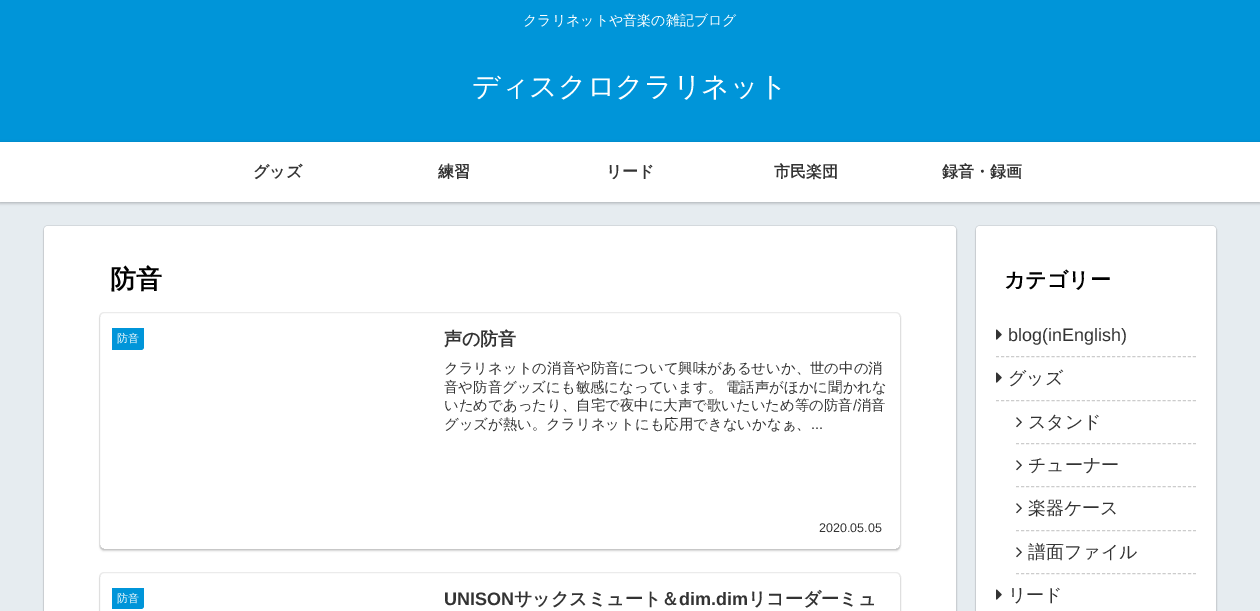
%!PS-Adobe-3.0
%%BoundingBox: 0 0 1260 611
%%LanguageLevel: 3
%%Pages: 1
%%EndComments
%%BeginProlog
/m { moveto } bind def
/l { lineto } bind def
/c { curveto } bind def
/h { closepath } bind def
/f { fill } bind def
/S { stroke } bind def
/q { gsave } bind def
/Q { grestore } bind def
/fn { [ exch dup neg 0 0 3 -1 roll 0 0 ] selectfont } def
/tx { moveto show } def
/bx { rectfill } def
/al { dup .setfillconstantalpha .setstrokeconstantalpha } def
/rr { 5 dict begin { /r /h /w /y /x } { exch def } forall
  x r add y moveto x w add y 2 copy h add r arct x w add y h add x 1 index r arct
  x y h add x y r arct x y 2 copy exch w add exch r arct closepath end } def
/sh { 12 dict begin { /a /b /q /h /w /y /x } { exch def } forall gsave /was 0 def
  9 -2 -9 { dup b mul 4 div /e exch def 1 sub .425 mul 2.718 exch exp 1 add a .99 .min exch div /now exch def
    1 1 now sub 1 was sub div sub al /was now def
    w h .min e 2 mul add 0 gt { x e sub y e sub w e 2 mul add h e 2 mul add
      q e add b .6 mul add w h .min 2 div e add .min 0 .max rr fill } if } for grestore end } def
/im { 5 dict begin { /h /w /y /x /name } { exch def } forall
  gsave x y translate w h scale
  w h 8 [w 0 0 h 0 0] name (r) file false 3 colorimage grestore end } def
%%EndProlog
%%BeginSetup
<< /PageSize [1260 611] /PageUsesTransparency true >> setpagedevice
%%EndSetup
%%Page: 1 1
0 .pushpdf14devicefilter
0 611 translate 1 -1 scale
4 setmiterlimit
0.902 0.925 0.941 setrgbcolor
0 0 1260 611 bx
1 setgray
0 142 1260 60 bx
0 0.584 0.851 setrgbcolor
0 0 1260 142 bx
/WenQuanYiZenHei-Medium 14 fn
1 setgray
(クラリネットや音楽の雑記ブログ) 523 25 tx
/WenQuanYiZenHei-Medium 28 fn
(ディスクロクラリネット) 472 96 tx
q
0 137 m 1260 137 l 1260 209 l 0 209 l h 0 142 m 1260 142 l 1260 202 l 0 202 l h eoclip newpath
0 setgray
0 143 1260 60 0 1.5 0.25 sh
Q
/WenQuanYiZenHei-Bold 16 fn
0.2 setgray
(グッズ) 253 177 tx
(練習) 438 177 tx
(リード) 606 177 tx
(市民楽団) 774 177 tx
(録音・録画) 942 177 tx
0.831 0.851 0.867 setrgbcolor
43.5 225.5 913 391 4.5 rr S
0 setgray
44 228 912 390 4 1 0.16 sh
1 setgray
44 226 912 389 4 rr f
/WenQuanYiZenHei-Bold 26 fn
0 setgray
(防音) 110 288 tx
0.922 setgray
99.5 312.5 801 237 4.5 rr S
q
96 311 m 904 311 l 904 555 l 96 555 l h 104 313 m 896 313 l 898 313 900 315 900 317 c 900 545 l 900 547 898 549 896 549 c 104 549 l 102 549 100 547 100 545 c 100 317 l 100 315 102 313 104 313 c h eoclip newpath
0 setgray
100 315 800 236 4 1 0.16 sh
Q
0 0.584 0.851 setrgbcolor
112 328 m 144 328 l 144 347 l 144 348.5 142.5 350 141 350 c 112 350 l h f
/WenQuanYiZenHei-Medium 11 fn
1 setgray
(防音) 117 342 tx
/WenQuanYiZenHei-Bold 18 fn
0.2 setgray
(声の防音) 444 345 tx
/WenQuanYiZenHei-Medium 14.4 fn
(クラリネットの消音や防音について興味があるせいか、世の中の消) 444 373 tx
(音や防音グッズにも敏感になっています。) 444 392 tx
(電話声がほかに聞かれな) 726 392 tx
(いためであったり、自宅で夜中に大声で歌いたいため等の防音) 444 410 tx
/LiberationSans-Regular 14.4 fn
(/) 853 410 tx
/WenQuanYiZenHei-Medium 14.4 fn
(消音) 857 410 tx
(グッズが熱い。クラリネットにも応用できないかなぁ、) 444 429 tx
/LiberationSans-Regular 14.4 fn
(...) 811 429 tx
/LiberationSans-Regular 12.5 fn
(2020.05.05) 819 532 tx
0.922 setgray
99.5 572.5 801 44 4.5 rr S
q
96 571 m 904 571 l 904 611 l 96 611 l h 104 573 m 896 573 l 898 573 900 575 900 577 c 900 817 l 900 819 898 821 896 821 c 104 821 l 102 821 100 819 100 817 c 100 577 l 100 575 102 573 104 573 c h eoclip newpath
0 setgray
100 575 800 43 4 1 0.16 sh
Q
0 0.584 0.851 setrgbcolor
112 588 m 144 588 l 144 606 l 144 607.5 142.5 609 141 609 c 112 609 l h f
/WenQuanYiZenHei-Medium 11 fn
1 setgray
(防音) 117 602 tx
/LiberationSans-Bold 18 fn
0.2 setgray
(UNISON) 444 605 tx
/WenQuanYiZenHei-Bold 18 fn
(サックスミュート＆) 514 605 tx
/LiberationSans-Bold 18 fn
(dim.dim) 679 605 tx
/WenQuanYiZenHei-Bold 18 fn
(リコーダーミュ) 748 605 tx
0.831 0.851 0.867 setrgbcolor
975.5 225.5 241 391 4.5 rr S
0 setgray
976 228 240 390 4 1 0.16 sh
1 setgray
976 226 240 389 4 rr f
/WenQuanYiZenHei-Bold 21 fn
0 setgray
(カテゴリー) 1004 287 tx
0.8 setgray
[3 2.05] 0 setdash
996 356.5 m 1196 356.5 l S
(image0.raw) 996 329 6 11 im
/LiberationSans-Regular 18 fn
0.2 setgray
(blog\(inEnglish\)) 1008 341 tx
0.8 setgray
996 400.5 m 1196 400.5 l S
(image0.raw) 996 372 6 11 im
/WenQuanYiZenHei-Medium 18 fn
0.2 setgray
(グッズ) 1008 384 tx
0.8 setgray
[3 2.06] 0 setdash
1016 443.5 m 1196 443.5 l S
(image1.raw) 1016 417 6 11 im
0.2 setgray
(スタンド) 1028 428 tx
0.8 setgray
1016 486.5 m 1196 486.5 l S
(image1.raw) 1016 460 6 11 im
0.2 setgray
(チューナー) 1028 471 tx
0.8 setgray
1016 530.5 m 1196 530.5 l S
(image1.raw) 1016 503 6 11 im
0.2 setgray
(楽器ケース) 1028 514 tx
0.8 setgray
1016 573.5 m 1196 573.5 l S
(image1.raw) 1016 547 6 11 im
0.2 setgray
(譜面ファイル) 1028 558 tx
(image0.raw) 996 589 6 11 im
(リード) 1008 601 tx
.poppdf14devicefilter showpage
%%EOF
